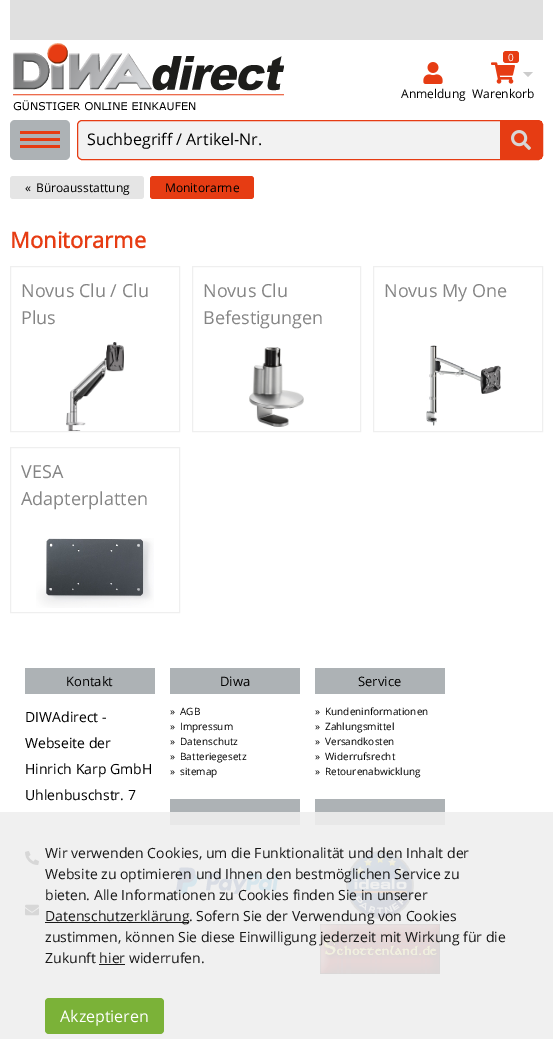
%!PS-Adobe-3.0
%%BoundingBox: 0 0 553 1039
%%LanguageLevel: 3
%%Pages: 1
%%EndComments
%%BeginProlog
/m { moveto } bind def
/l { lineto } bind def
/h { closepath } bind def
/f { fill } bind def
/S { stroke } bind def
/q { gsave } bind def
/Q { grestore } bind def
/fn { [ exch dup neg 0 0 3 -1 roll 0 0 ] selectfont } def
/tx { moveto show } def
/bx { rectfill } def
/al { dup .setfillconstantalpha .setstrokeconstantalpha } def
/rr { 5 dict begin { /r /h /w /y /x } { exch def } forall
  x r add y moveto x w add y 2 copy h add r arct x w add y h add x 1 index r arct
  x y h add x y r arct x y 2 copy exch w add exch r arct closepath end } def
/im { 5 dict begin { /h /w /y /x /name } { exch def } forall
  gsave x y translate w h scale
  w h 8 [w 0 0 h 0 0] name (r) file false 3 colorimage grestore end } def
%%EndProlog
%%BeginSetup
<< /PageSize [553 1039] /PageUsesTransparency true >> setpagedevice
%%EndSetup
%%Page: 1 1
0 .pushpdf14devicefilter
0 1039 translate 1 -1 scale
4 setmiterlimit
1 setgray
0 0 553 1039 bx
0.878 setgray
10 0 533 40 bx
(image0.raw) 13 43 271 68 im
(image1.raw) 423 62 20 22 im
/OpenSans-Regular 12 fn
0 setgray
(Anmeldung) 401 98 tx
(image2.raw) 491 62 24 22 im
0.902 0.235 0.075 setrgbcolor
503 51 16 12 3 rr f
/OpenSans-Regular 10 fn
1 setgray
(0) 508 61 tx
0.8 setgray
523 72 m 533 72 l 528 77 l h f
/OpenSans-Regular 12 fn
0 setgray
(Warenkorb) 472 98 tx
0.678 0.698 0.71 setrgbcolor
10 120 60 40 5 rr f
0.902 0.235 0.075 setrgbcolor
20 131 40 3 bx
20 138 40 3 bx
20 145 40 3 bx
0.949 setgray
77.5 120.5 465 39 4.5 rr q f Q
0.902 0.235 0.075 setrgbcolor
S
/OpenSans-Regular 16 fn
0 setgray
(Suchbegriff / Artikel-Nr.) 87 145 tx
0.902 0.235 0.075 setrgbcolor
500 121 42 38 bx
(image3.raw) 511 130 20 20 im
0.898 setgray
10 176 134 23 3 rr f
/OpenSans-Regular 12 fn
0 setgray
(«) 25 192 tx
(Büroausstattung) 36 192 tx
0.902 0.235 0.075 setrgbcolor
150 176 104 23 3 rr f
0 setgray
(Monitorarme) 165 192 tx
/OpenSans-Bold 22 fn
0.902 0.235 0.075 setrgbcolor
(Monitorarme) 10 248 tx
0.937 setgray
10.5 266.5 169 165 rectstroke
/OpenSans-Regular 18 fn
0.522 setgray
(Novus Clu / Clu) 21 297 tx
(Plus) 21 324 tx
(image4.raw) 66 342 58 89 im
0.937 setgray
192.5 266.5 168 165 rectstroke
0.522 setgray
(Novus Clu) 203 297 tx
(Befestigungen) 203 324 tx
(image5.raw) 249 347 55 80 im
0.937 setgray
373.5 266.5 169 165 rectstroke
0.522 setgray
(Novus My One) 384 297 tx
(image6.raw) 426 345 75 81 im
0.937 setgray
10.5 447.5 169 165 rectstroke
0.522 setgray
(VESA) 21 478 tx
(Adapterplatten) 21 505 tx
(image7.raw) 36 538 118 70 im
0.678 0.698 0.71 setrgbcolor
25 668 130 26 bx
/OpenSans-Regular 13 fn
0 setgray
(Kontakt) 66 686 tx
/OpenSans-Regular 14 fn
(DIWAdirect -) 25 722 tx
(Webseite der) 25 748 tx
(Hinrich Karp GmbH) 25 774 tx
(Uhlenbuschstr. 7) 25 800 tx
(image8.raw) 25 851 14 14 im
(image9.raw) 25 904 14 12 im
0.678 0.698 0.71 setrgbcolor
170 668 130 26 bx
/OpenSans-Regular 13 fn
0 setgray
(Diwa) 220 686 tx
/OpenSans-Regular 10 fn
(») 170 715 tx
(AGB) 180 715 tx
(») 170 730 tx
(Impressum) 180 730 tx
(») 170 745 tx
(Datenschutz) 180 745 tx
(») 170 760 tx
(Batteriegesetz) 180 760 tx
(») 170 775 tx
(sitemap) 180 775 tx
0.678 0.698 0.71 setrgbcolor
315 668 130 26 bx
/OpenSans-Regular 13 fn
0 setgray
(Service) 358 686 tx
/OpenSans-Regular 10 fn
(») 315 715 tx
(Kundeninformationen) 325 715 tx
(») 315 730 tx
(Zahlungsmittel) 325 730 tx
(») 315 745 tx
(Versandkosten) 325 745 tx
(») 315 760 tx
(Widerrufsrecht) 325 760 tx
(») 315 775 tx
(Retourenabwicklung) 325 775 tx
0.678 0.698 0.71 setrgbcolor
170 799 130 26 bx
(image10.raw) 176 867 102 27 im
315 799 130 26 bx
(image11.raw) 346 851 68 68 im
(image12.raw) 320 924 120 50 im
0.9 al
0.933 setgray
0 812 553 227 bx
/OpenSans-Regular 14 fn
1 al
0.094 setgray
(Wir verwenden Cookies, um die Funktionalität und den Inhalt der) 45 858 tx
(Website zu optimieren und Ihnen den bestmöglichen Service zu) 45 879 tx
(bieten. Alle Informationen zu Cookies finden Sie in unserer) 45 900 tx
0.102 setgray
45 922 144 1 bx
0.094 setgray
(Datenschutzerklärung) 45 921 tx
(. Sofern Sie der Verwendung von Cookies) 189 921 tx
(zustimmen, können Sie diese Einwilligung jederzeit mit Wirkung für die) 45 942 tx
(Zukunft hier widerrufen.) 45 963 tx
0.102 setgray
99 964 26 1 bx
0.9 al
0.431 0.671 0.141 setrgbcolor
45 998 119 36 4 rr f
/OpenSans-Regular 16 fn
1 al
1 setgray
(Akzeptieren) 60 1022 tx
.poppdf14devicefilter showpage
%%EOF
